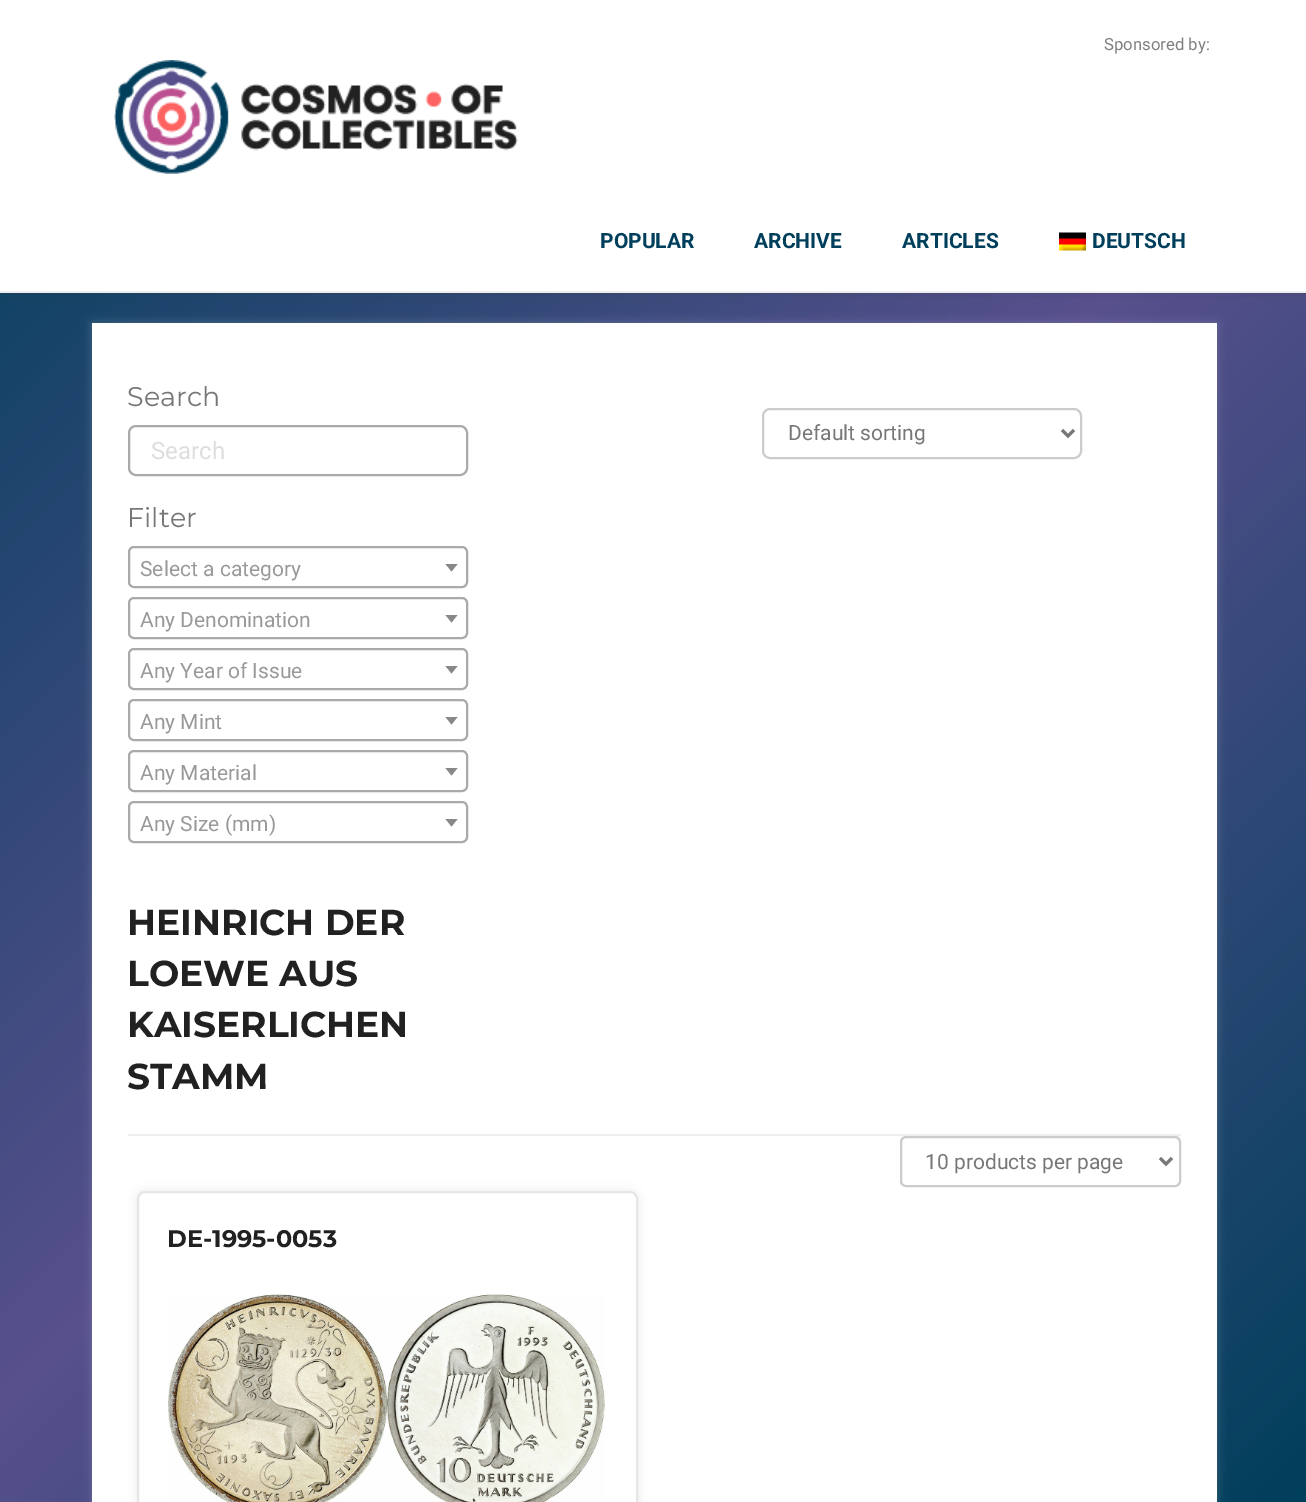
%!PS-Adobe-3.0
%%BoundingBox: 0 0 1306 1502
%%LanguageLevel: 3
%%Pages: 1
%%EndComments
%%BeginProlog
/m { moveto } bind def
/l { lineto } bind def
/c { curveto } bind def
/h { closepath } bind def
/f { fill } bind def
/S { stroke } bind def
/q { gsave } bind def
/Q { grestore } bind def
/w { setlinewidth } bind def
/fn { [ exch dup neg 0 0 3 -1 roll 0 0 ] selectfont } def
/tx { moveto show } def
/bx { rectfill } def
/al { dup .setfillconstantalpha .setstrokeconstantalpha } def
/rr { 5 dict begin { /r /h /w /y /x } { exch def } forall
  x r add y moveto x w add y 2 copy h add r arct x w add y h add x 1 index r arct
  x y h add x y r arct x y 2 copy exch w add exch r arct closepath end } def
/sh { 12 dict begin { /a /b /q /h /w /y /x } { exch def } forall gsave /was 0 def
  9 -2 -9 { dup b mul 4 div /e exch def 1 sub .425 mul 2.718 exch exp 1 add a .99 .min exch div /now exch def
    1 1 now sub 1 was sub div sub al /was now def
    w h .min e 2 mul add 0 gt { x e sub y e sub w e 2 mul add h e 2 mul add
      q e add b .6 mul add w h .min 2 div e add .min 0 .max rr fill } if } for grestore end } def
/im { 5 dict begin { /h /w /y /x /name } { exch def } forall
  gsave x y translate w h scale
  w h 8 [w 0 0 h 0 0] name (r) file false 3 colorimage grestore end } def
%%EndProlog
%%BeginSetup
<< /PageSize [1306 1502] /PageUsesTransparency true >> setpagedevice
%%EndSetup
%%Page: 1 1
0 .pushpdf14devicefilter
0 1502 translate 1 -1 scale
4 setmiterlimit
1 setgray
0 0 1306 1502 bx
q 0 293 m 1306 293 l 1306 1502 l 0 1502 l h clip newpath
<< /ShadingType 2 /ColorSpace /DeviceRGB /Coords [-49 49 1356 1454] /Extend [true true] /Function << /FunctionType 3 /Domain [0 1] /Functions [<< /FunctionType 2 /Domain [0 1] /C0 [0 0.247 0.361] /C1 [0.345 0.314 0.553] /N 1 >> << /FunctionType 2 /Domain [0 1] /C0 [0.345 0.314 0.553] /C1 [0 0.247 0.361] /N 1 >>] /Bounds [0.5] /Encode [0 1 0 1] >> >> shfill Q
0.2 setgray
0 0 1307 293 0 4.5 0.25 sh
1 setgray
0 0 1306 291 bx
0.933 setgray
0 291 1306 2 bx
/Roboto-Regular 16.75 fn
0.502 setgray
(Sponsored by:) 1104 50 tx
(image0.raw) 114 60 404 114 im
/Roboto-Bold 21 fn
0 0.247 0.361 setrgbcolor
(POPULAR) 600 248 tx
(ARCHIVE) 754 248 tx
(ARTICLES) 902 248 tx
(image1.raw) 1059 232 27 19 im
(DEUTSCH) 1092 248 tx
0.8 setgray
92 323 1125 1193 0 4.5 0.25 sh
1 setgray
92 323 1125 1179 bx
/Montserrat-Regular 27 fn
0.467 setgray
(Search) 127 406 tx
0.667 setgray
2 w
129 426 338 49 7 rr S
/Roboto-Regular 24 fn
0.867 setgray
(Search) 151 459 tx
/Montserrat-Regular 27 fn
0.467 setgray
(Filter) 127 527 tx
0.667 setgray
129 547 338 40 5 rr S
/Roboto-Regular 21 fn
0.6 setgray
(Select a category) 140 576 tx
0.533 setgray
445.5 564 m 457.5 564 l 451.5 571.5 l h f
0.667 setgray
129 598 338 40 5 rr S
0.6 setgray
(Any Denomination) 140 627 tx
0.533 setgray
445.5 615 m 457.5 615 l 451.5 622.5 l h f
0.667 setgray
129 649 338 40 5 rr S
0.6 setgray
(Any Year of Issue) 140 678 tx
0.533 setgray
445.5 666 m 457.5 666 l 451.5 673.5 l h f
0.667 setgray
129 700 338 40 5 rr S
0.6 setgray
(Any Mint) 140 729 tx
0.533 setgray
445.5 717 m 457.5 717 l 451.5 724.5 l h f
0.667 setgray
129 751 338 40 5 rr S
0.6 setgray
(Any Material) 140 780 tx
0.533 setgray
445.5 768 m 457.5 768 l 451.5 775.5 l h f
0.667 setgray
129 802 338 40 5 rr S
0.6 setgray
(Any Size \(mm\)) 140 831 tx
0.533 setgray
445.5 819 m 457.5 819 l 451.5 826.5 l h f
/Montserrat-Bold 36 fn
0.129 setgray
(HEINRICH DER) 127 935 tx
(LOEWE AUS) 127 986 tx
(KAISERLICHEN) 127 1037 tx
(STAMM) 127 1089 tx
0.8 setgray
763 409 318 49 7 rr S
0.467 setgray
3 w
1062 430 m 1068 436 l 1074 430 l S
/Roboto-Regular 21 fn
(Default sorting) 788 440 tx
0.933 setgray
128 1134 1053 2 bx
0.925 setgray
906 1138 m 1174 1138 l 1177 1138 1179 1141 1179 1143 c 1179 1142 l 1179 1139 1177 1137 1174 1137 c 907 1137 l 904 1137 902 1139 902 1142 c 902 1143 l 902 1141 904 1138 906 1138 c h f
0.8 setgray
2 w
901 1137 279 49 5 rr S
0.467 setgray
3 w
1160 1158 m 1166 1164 l 1172 1158 l S
(10 products per page) 925 1169 tx
0.667 setgray
137 1191 501 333 8 4.5 0.25 sh
1 setgray
138 1192 499 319 7 rr q f Q
0.902 setgray
2 w
S
/Montserrat-Bold 24 fn
0.129 setgray
(DE-1995-0053) 167 1247 tx
(image2.raw) 168 1294 219 208 im
(image3.raw) 387 1294 218 208 im
.poppdf14devicefilter showpage
%%EOF
